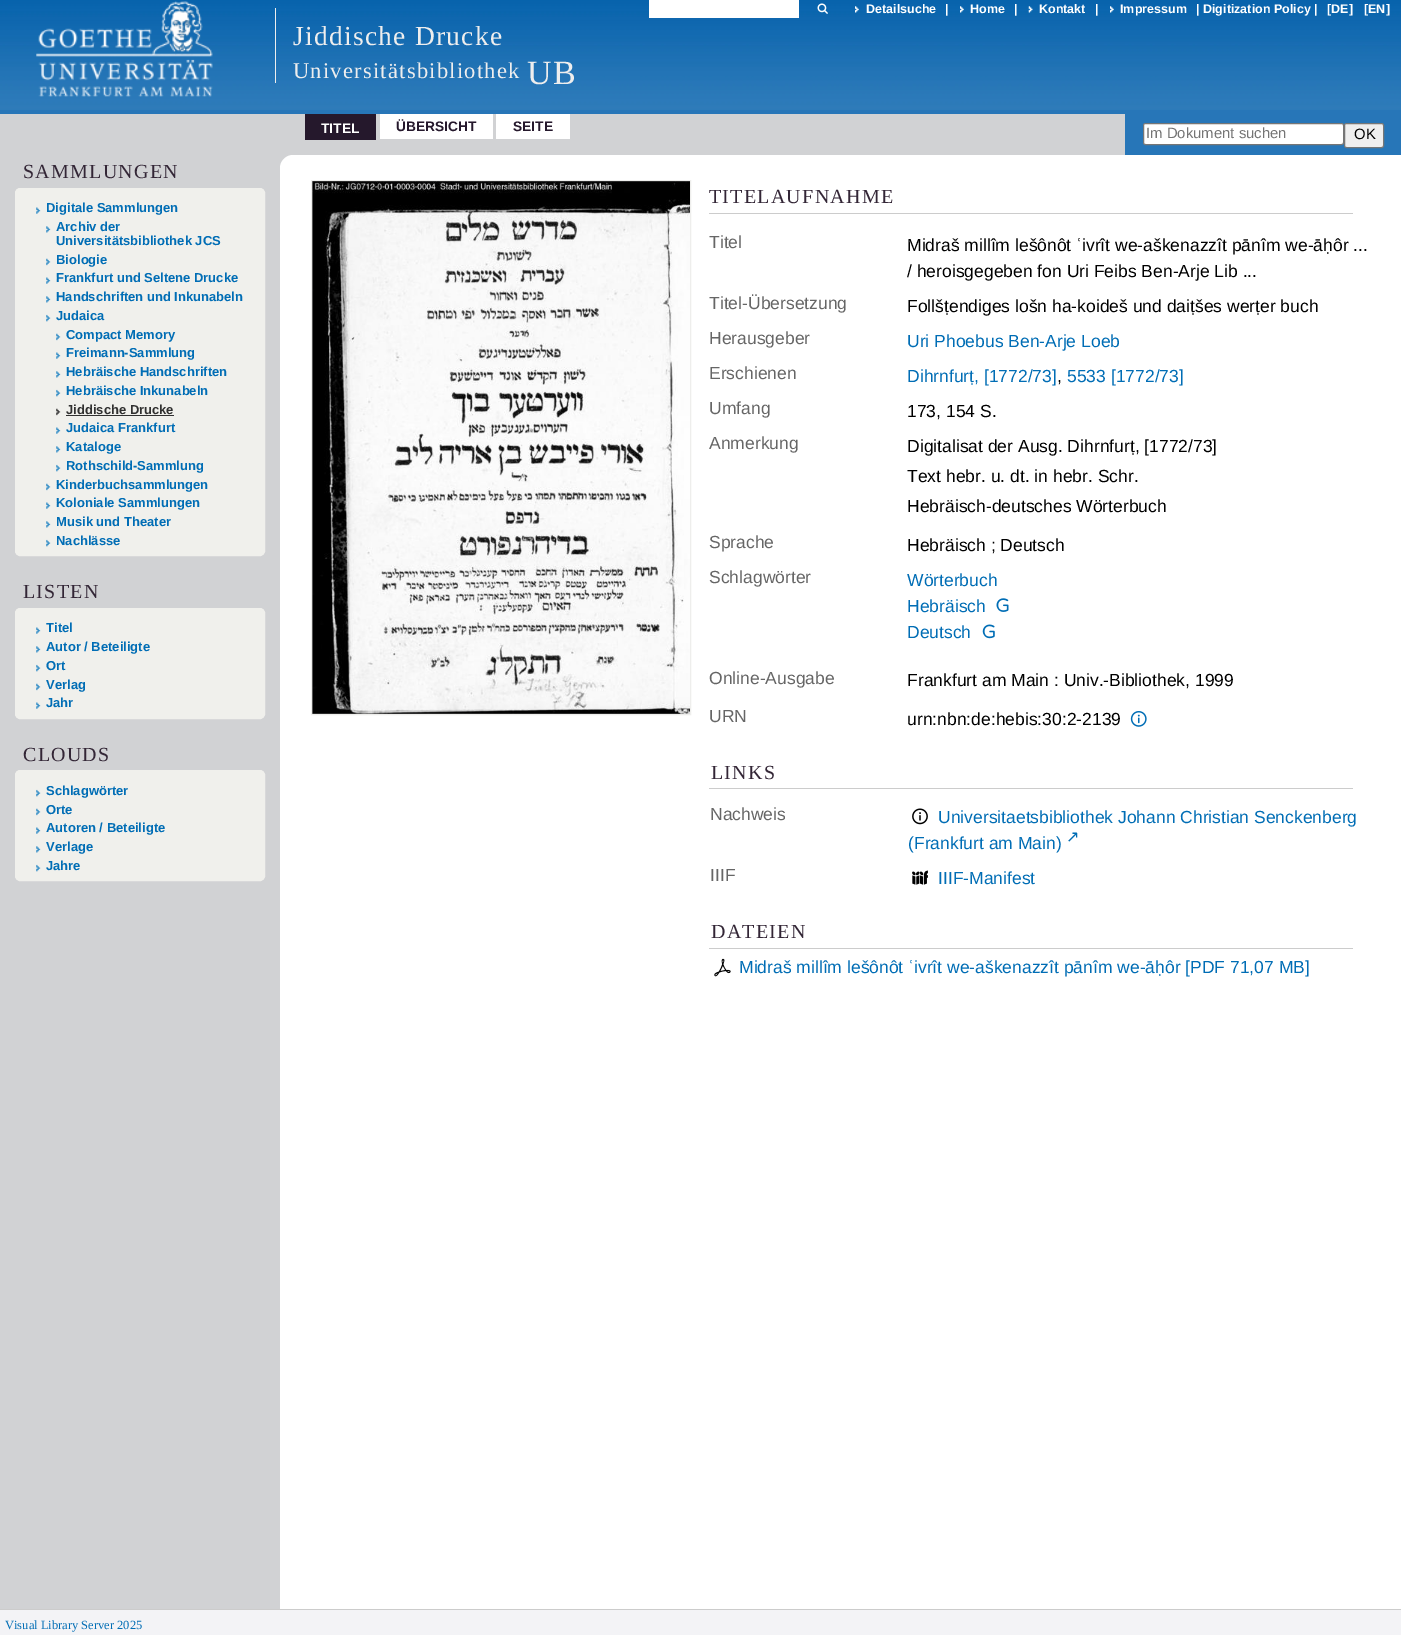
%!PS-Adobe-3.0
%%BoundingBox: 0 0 1401 1635
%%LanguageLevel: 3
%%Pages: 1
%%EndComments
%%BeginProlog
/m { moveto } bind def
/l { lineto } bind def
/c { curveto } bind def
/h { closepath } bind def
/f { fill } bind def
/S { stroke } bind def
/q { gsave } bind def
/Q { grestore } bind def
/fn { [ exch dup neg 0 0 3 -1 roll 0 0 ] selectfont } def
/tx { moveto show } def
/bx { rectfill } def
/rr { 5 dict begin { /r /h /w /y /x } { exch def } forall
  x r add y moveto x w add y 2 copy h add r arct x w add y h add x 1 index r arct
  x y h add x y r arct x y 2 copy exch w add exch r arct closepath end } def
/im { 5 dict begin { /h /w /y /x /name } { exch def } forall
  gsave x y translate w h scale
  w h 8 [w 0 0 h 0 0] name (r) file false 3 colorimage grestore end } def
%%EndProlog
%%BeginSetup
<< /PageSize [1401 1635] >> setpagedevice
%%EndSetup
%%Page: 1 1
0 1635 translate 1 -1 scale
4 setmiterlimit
0.153 0.463 0.722 setrgbcolor
0 0 1401 1635 bx
(image0.raw) 0 0 1401 110 im
(image1.raw) 36 1 177 96 im
1 setgray
649 0 150 18 bx
(image2.raw) 817 3 11 11 im
(image3.raw) 855 6 4 7 im
/LiberationSans-Bold 12.5 fn
(Detailsuche) 866 13 tx
(|) 945 13 tx
(image4.raw) 960 6 4 7 im
(Home) 970 13 tx
(|) 1014 13 tx
(image5.raw) 1028 6 5 7 im
(Kontakt) 1039 13 tx
(|) 1095 13 tx
(image6.raw) 1110 6 4 7 im
(Impressum) 1120 13 tx
(| Digitization Policy |) 1196 13 tx
([DE]) 1327 13 tx
([EN]) 1364 13 tx
0.933 setgray
275 8 1 75 bx
/LiberationSerif-Regular 27.5 fn
293 45 m 1.25 0 (Jiddische Drucke) ashow
/LiberationSerif-Regular 22.5 fn
293 78 m 1.25 0 (Universitätsbibliothek) ashow
/LiberationSerif-Regular 34 fn
527 84 m 1.25 0 (UB) ashow
0.82 0.824 0.831 setrgbcolor
0 114 1125 41 bx
0.145 0.094 0.173 setrgbcolor
305 114 71 26 bx
/LiberationSans-Bold 13.75 fn
1 setgray
(TITEL) 321 133 tx
380 114 113 25 bx
0.145 0.094 0.173 setrgbcolor
(ÜBERSICHT) 396 131 tx
1 setgray
496 114 74 25 bx
0.145 0.094 0.173 setrgbcolor
(SEITE) 513 131 tx
1 setgray
1143.5 123.5 200 21 2 rr q f Q
0.463 setgray
S
/LiberationSans-Regular 14.9 fn
0.459 setgray
(Im Dokument suchen) 1146 138 tx
0.937 setgray
1344.5 123.5 39 24 2 rr q f Q
0.463 setgray
S
0 setgray
(OK) 1354 139 tx
0.82 0.824 0.831 setrgbcolor
0 155 293 1454 bx
/LiberationSerif-Regular 20 fn
0.2 0.149 0.212 setrgbcolor
23 178 m 1.25 0 (SAMMLUNGEN) ashow
0.941 0.941 0.925 setrgbcolor
15.5 188.5 249 367 4.5 rr q f Q
S
(image7.raw) 36 207 5 7 im
/LiberationSans-Bold 13 fn
0 0.427 0.71 setrgbcolor
(Digitale Sammlungen) 46 212 tx
(image8.raw) 46 226 5 7 im
(Archiv der) 56 231 tx
(Universitätsbibliothek JCS) 56 245 tx
(image9.raw) 46 258 5 8 im
(Biologie) 56 264 tx
(image7.raw) 46 277 5 7 im
(Frankfurt und Seltene Drucke) 56 282 tx
(image8.raw) 46 296 5 7 im
(Handschriften und Inkunabeln) 56 301 tx
(image10.raw) 46 314 5 8 im
(Judaica) 56 320 tx
(image9.raw) 56 333 5 8 im
(Compact Memory) 66 339 tx
(image7.raw) 56 352 5 7 im
(Freimann-Sammlung) 66 357 tx
(image8.raw) 56 371 5 7 im
(Hebräische Handschriften) 66 376 tx
(image10.raw) 56 389 5 8 im
(Hebräische Inkunabeln) 66 395 tx
(image11.raw) 56 408 5 8 im
0.188 setgray
(Jiddische Drucke) 66 414 tx
66 415 108 1 bx
(image7.raw) 56 427 5 7 im
0 0.427 0.71 setrgbcolor
(Judaica Frankfurt) 66 432 tx
(image8.raw) 56 446 5 7 im
(Kataloge) 66 451 tx
(image10.raw) 56 464 5 8 im
(Rothschild-Sammlung) 66 470 tx
(image9.raw) 46 483 5 8 im
(Kinderbuchsammlungen) 56 489 tx
(image7.raw) 46 502 5 7 im
(Koloniale Sammlungen) 56 507 tx
(image8.raw) 46 521 5 7 im
(Musik und Theater) 56 526 tx
(image10.raw) 46 539 5 8 im
(Nachlässe) 56 545 tx
/LiberationSerif-Regular 20 fn
0.2 0.149 0.212 setrgbcolor
23 598 m 1.25 0 (LISTEN) ashow
0.941 0.941 0.925 setrgbcolor
15.5 608.5 249 110 4.5 rr q f Q
S
(image7.raw) 36 627 5 7 im
/LiberationSans-Bold 13 fn
0 0.427 0.71 setrgbcolor
(Titel) 46 632 tx
(image8.raw) 36 646 5 7 im
(Autor / Beteiligte) 46 651 tx
(image10.raw) 36 664 5 8 im
(Ort) 46 670 tx
(image9.raw) 36 683 5 8 im
(Verlag) 46 689 tx
(image7.raw) 36 702 5 7 im
(Jahr) 46 707 tx
/LiberationSerif-Regular 20 fn
0.2 0.149 0.212 setrgbcolor
23 761 m 1.25 0 (CLOUDS) ashow
0.941 0.941 0.925 setrgbcolor
15.5 770.5 249 110 4.5 rr q f Q
S
(image10.raw) 36 789 5 8 im
/LiberationSans-Bold 13 fn
0 0.427 0.71 setrgbcolor
(Schlagwörter) 46 795 tx
(image9.raw) 36 808 5 8 im
(Orte) 46 814 tx
(image7.raw) 36 827 5 7 im
(Autoren / Beteiligte) 46 832 tx
(image8.raw) 36 846 5 7 im
(Verlage) 46 851 tx
(image10.raw) 36 864 5 8 im
(Jahre) 46 870 tx
1 setgray
293 155 m 1401 155 l 1401 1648 l 280 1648 l 280 168 l 280 161 286 155 293 155 c h f
0.667 setgray
311.5 180.5 m 690.5 180.5 l 690.5 714.5 l 311.5 714.5 l h q f Q
0.933 0.933 0.925 setrgbcolor
S
(image12.raw) 312 181 378 533 im
0.8 setgray
709 213 644 1 bx
/LiberationSerif-Regular 20 fn
0.2 0.149 0.212 setrgbcolor
709 203 m 1.25 0 (TITELAUFNAHME) ashow
/LiberationSans-Regular 17.5 fn
0.4 setgray
(Titel) 709 248 tx
0 setgray
(Midraš millîm lešônôt ʿivrît we-aškenazzît pānîm we-āḥôr ...) 907 251 tx
(/ heroisgegeben fon Uri Feibs Ben-Arje Lib ...) 907 277 tx
0.4 setgray
(Titel-Übersetzung) 709 309 tx
0 setgray
(Follšṭendiges lošn ha-koideš und daiṭšes werṭer buch) 907 312 tx
0.4 setgray
(Herausgeber) 709 344 tx
0 0.427 0.71 setrgbcolor
(Uri Phoebus Ben-Arje Loeb) 907 347 tx
0.4 setgray
(Erschienen) 709 379 tx
0 0.427 0.71 setrgbcolor
(Dihrnfurṭ, [1772/73]) 907 382 tx
0 setgray
(,) 1057 382 tx
0 0.427 0.71 setrgbcolor
(5533 [1772/73]) 1067 382 tx
0.4 setgray
(Umfang) 709 414 tx
0 setgray
(173, 154 S.) 907 417 tx
0.4 setgray
(Anmerkung) 709 449 tx
0 setgray
(Digitalisat der Ausg. Dihrnfurṭ, [1772/73]) 907 452 tx
(Text hebr. u. dt. in hebr. Schr.) 907 482 tx
(Hebräisch-deutsches Wörterbuch) 907 512 tx
0.4 setgray
(Sprache) 709 548 tx
0 setgray
(Hebräisch ; Deutsch) 907 551 tx
0.4 setgray
(Schlagwörter) 709 583 tx
0 0.427 0.71 setrgbcolor
(Wörterbuch) 907 586 tx
(Hebräisch) 907 612 tx
(image13.raw) 996 598 13 14 im
(Deutsch) 907 638 tx
(image14.raw) 982 624 13 15 im
0.4 setgray
(Online-Ausgabe) 709 684 tx
0 setgray
(Frankfurt am Main : Univ.-Bibliothek, 1999) 907 686 tx
0.4 setgray
(URN) 709 722 tx
0 setgray
(urn:nbn:de:hebis:30:2-2139) 907 725 tx
(image15.raw) 1130 711 17 16 im
0.8 setgray
709 788 644 1 bx
/LiberationSerif-Regular 20 fn
0.2 0.149 0.212 setrgbcolor
711 779 m 1.25 0 (LINKS) ashow
/LiberationSans-Regular 17.5 fn
0.4 setgray
(Nachweis) 710 820 tx
(image16.raw) 912 808 16 17 im
0 0.427 0.71 setrgbcolor
(Universitaetsbibliothek Johann Christian Senckenberg) 938 823 tx
(\(Frankfurt am Main\)) 908 849 tx
/DejaVuSans-Regular 16 fn
(↗) 1066 842 tx
/LiberationSans-Regular 17.5 fn
0.4 setgray
(IIIF) 710 881 tx
(image17.raw) 912 870 16 15 im
0 0.427 0.71 setrgbcolor
(IIIF-Manifest) 938 884 tx
0.8 setgray
709 948 644 1 bx
/LiberationSerif-Regular 20 fn
0.2 0.149 0.212 setrgbcolor
711 938 m 1.25 0 (DATEIEN) ashow
(image18.raw) 714 958 17 19 im
/LiberationSans-Regular 17.5 fn
0 0.427 0.71 setrgbcolor
(Midraš millîm lešônôt ʿivrît we-aškenazzît pānîm we-āḥôr [PDF 71,07 MB]) 739 973 tx
0.953 0.953 0.965 setrgbcolor
0 1610 1401 25 bx
0.8 setgray
0 1609 1401 1 bx
/LiberationSerif-Regular 12.5 fn
0 0.427 0.71 setrgbcolor
(Visual Library Server 2025) 5 1629 tx
showpage
%%EOF
